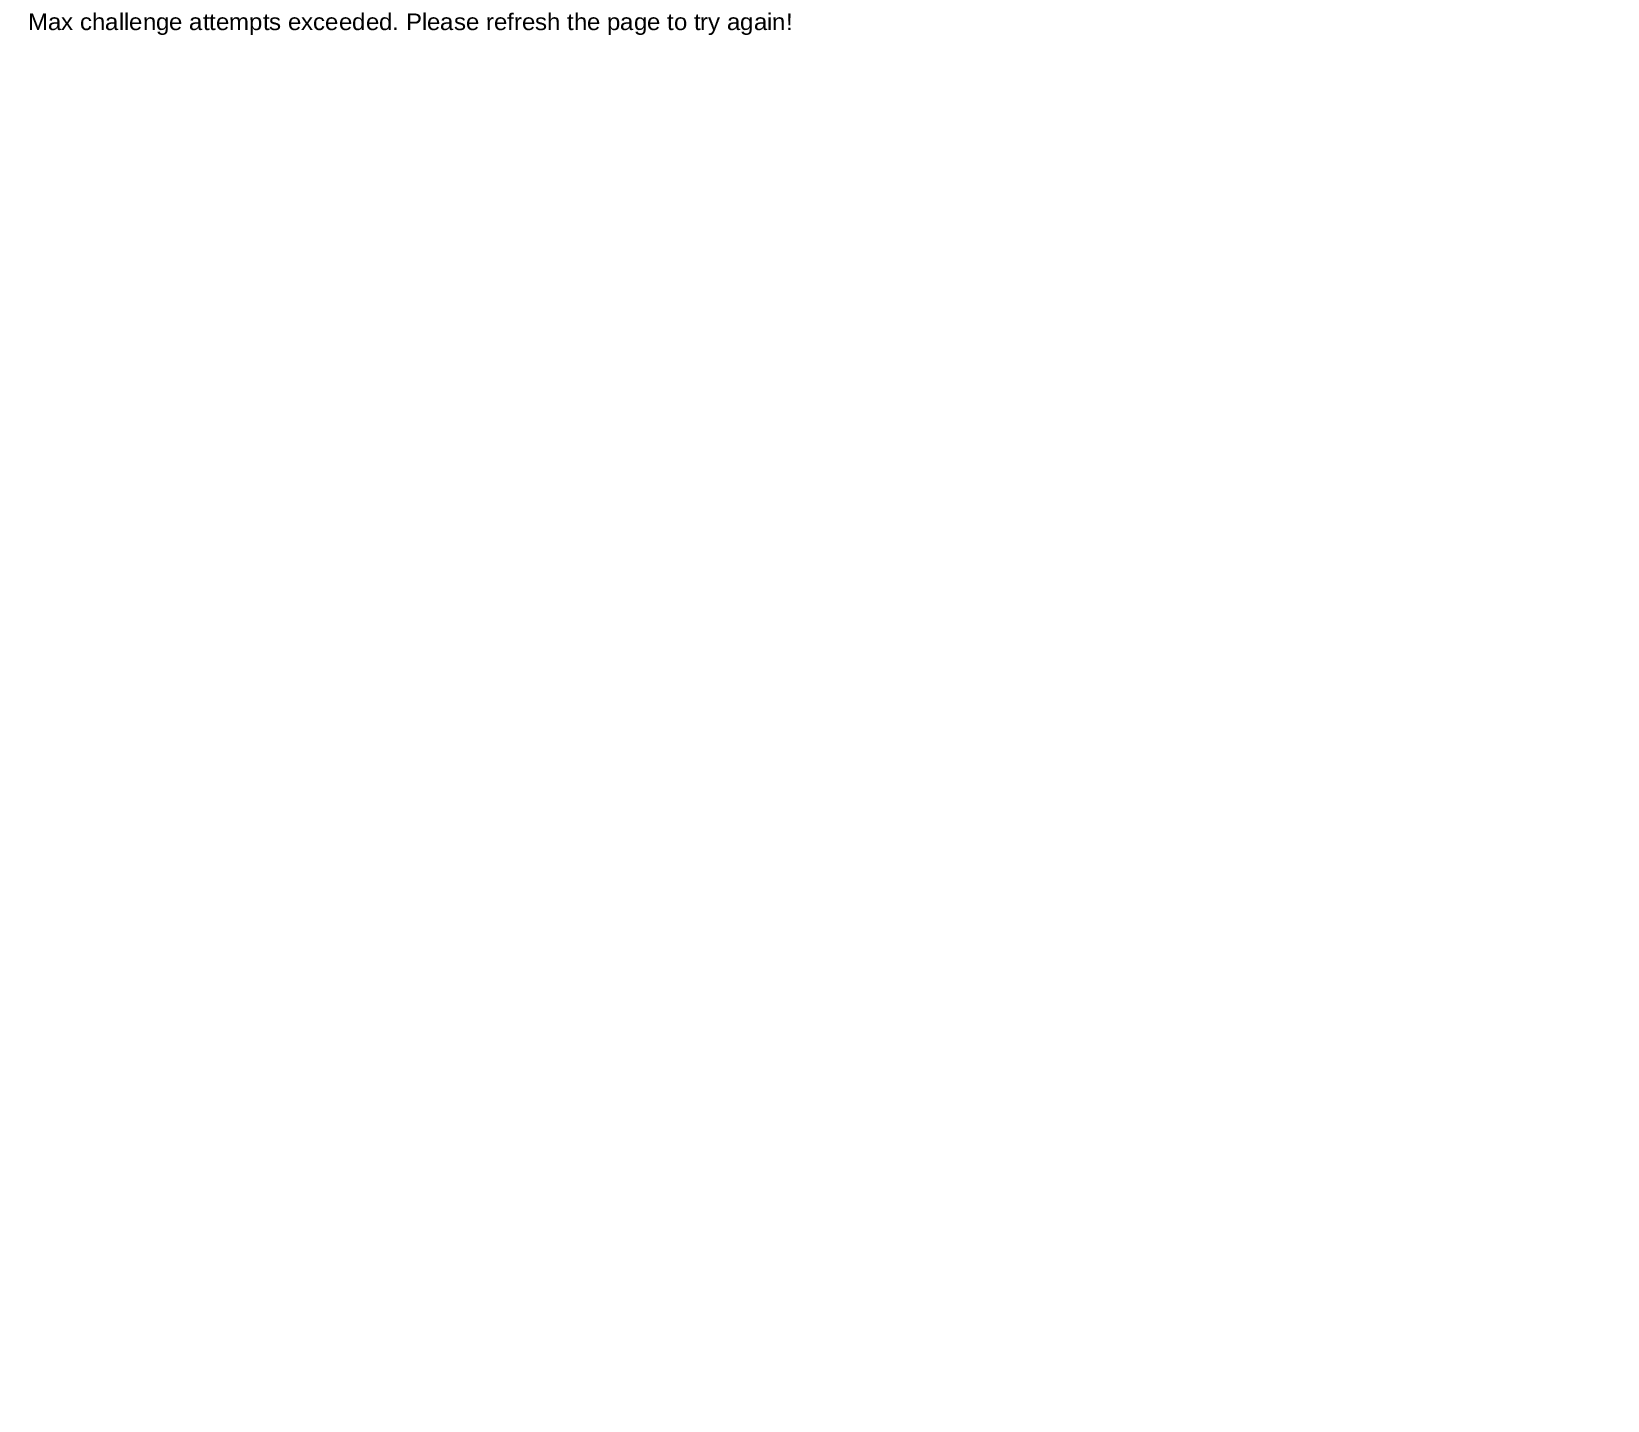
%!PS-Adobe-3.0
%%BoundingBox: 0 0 1639 1432
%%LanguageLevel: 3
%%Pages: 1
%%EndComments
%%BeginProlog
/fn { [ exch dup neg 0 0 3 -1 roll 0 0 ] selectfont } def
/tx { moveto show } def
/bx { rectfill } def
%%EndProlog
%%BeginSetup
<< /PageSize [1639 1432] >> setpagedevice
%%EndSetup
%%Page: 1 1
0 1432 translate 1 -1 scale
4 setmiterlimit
1 setgray
0 0 1639 1432 bx
/LiberationSans-Regular 24 fn
0 setgray
(Max challenge attempts exceeded. Please refresh the page to try again!) 28 30 tx
showpage
%%EOF
